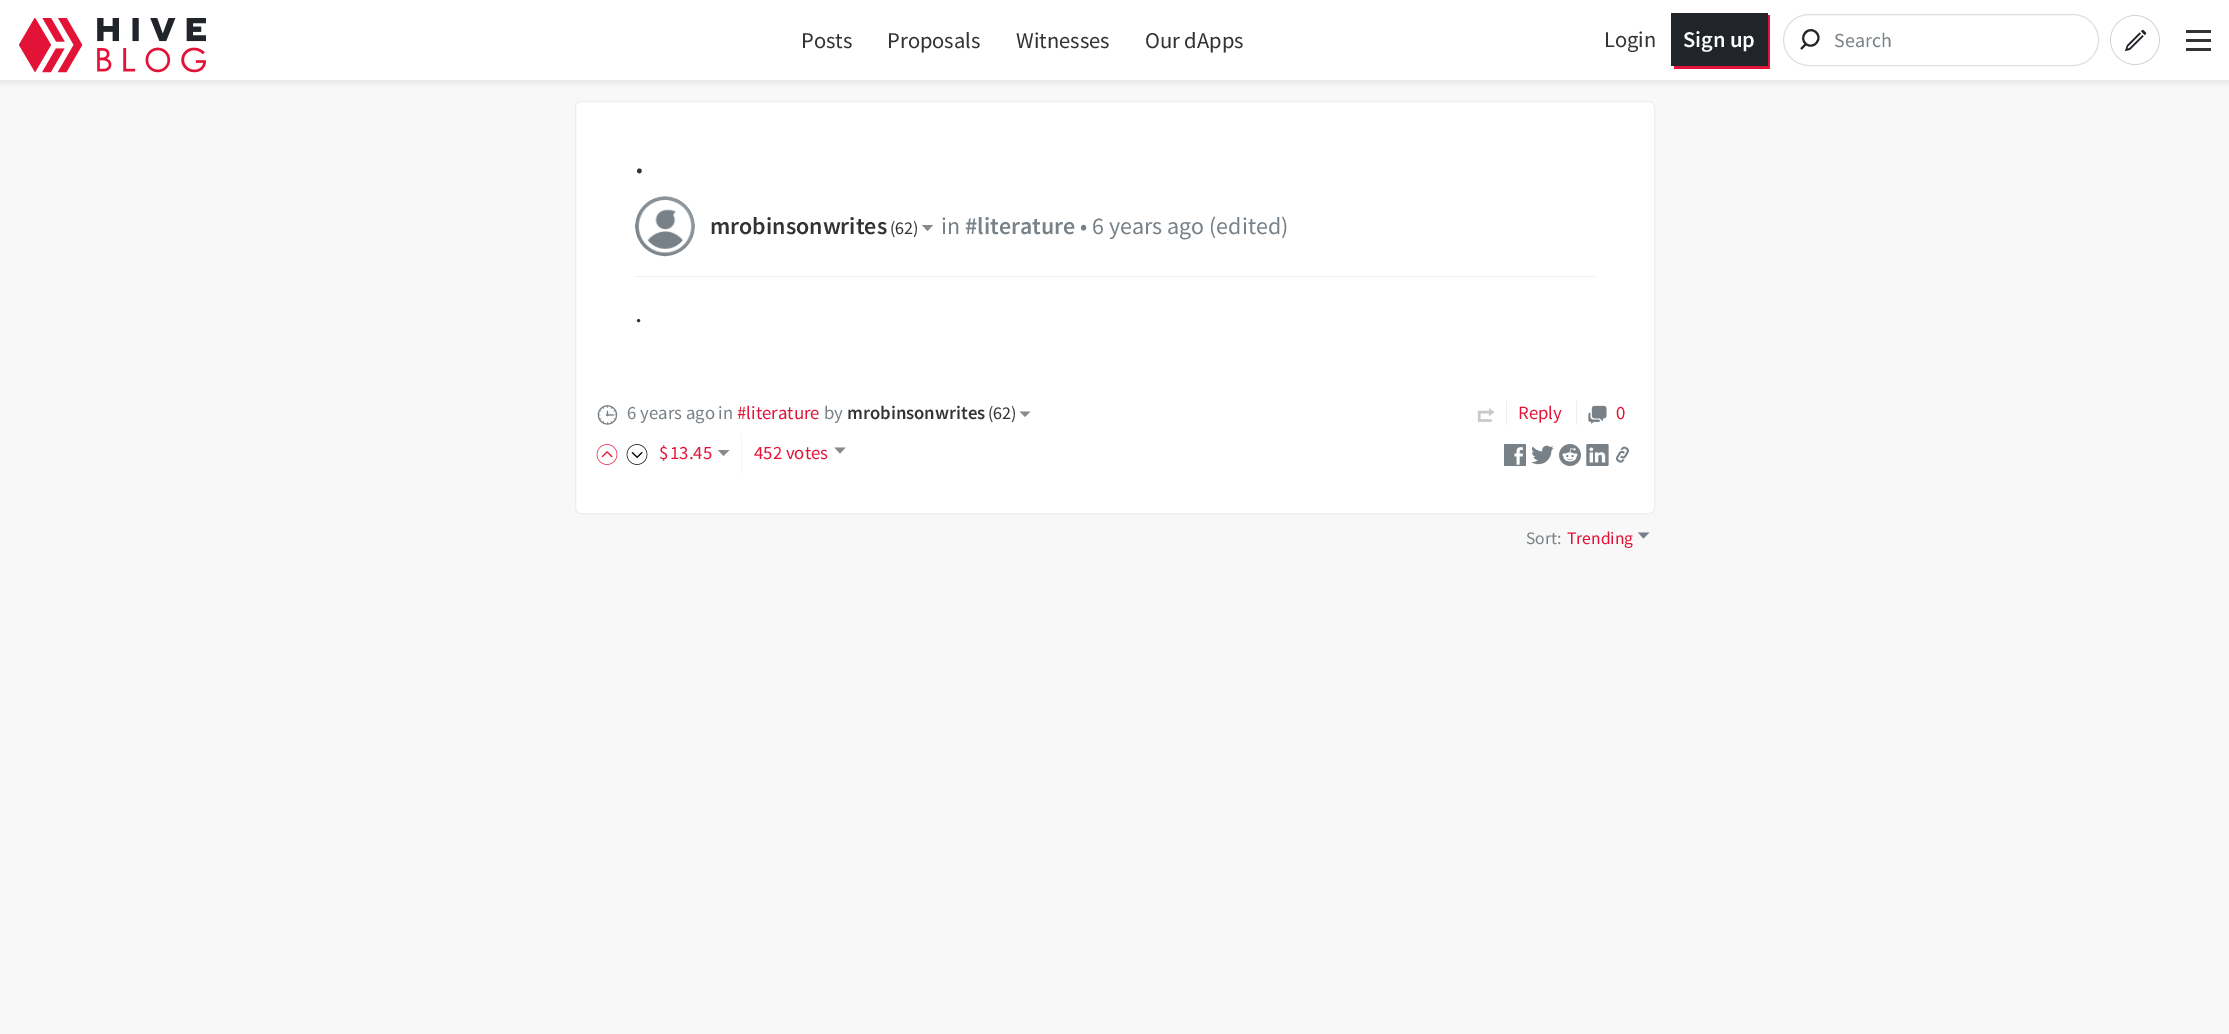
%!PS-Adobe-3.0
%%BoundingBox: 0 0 2229 1034
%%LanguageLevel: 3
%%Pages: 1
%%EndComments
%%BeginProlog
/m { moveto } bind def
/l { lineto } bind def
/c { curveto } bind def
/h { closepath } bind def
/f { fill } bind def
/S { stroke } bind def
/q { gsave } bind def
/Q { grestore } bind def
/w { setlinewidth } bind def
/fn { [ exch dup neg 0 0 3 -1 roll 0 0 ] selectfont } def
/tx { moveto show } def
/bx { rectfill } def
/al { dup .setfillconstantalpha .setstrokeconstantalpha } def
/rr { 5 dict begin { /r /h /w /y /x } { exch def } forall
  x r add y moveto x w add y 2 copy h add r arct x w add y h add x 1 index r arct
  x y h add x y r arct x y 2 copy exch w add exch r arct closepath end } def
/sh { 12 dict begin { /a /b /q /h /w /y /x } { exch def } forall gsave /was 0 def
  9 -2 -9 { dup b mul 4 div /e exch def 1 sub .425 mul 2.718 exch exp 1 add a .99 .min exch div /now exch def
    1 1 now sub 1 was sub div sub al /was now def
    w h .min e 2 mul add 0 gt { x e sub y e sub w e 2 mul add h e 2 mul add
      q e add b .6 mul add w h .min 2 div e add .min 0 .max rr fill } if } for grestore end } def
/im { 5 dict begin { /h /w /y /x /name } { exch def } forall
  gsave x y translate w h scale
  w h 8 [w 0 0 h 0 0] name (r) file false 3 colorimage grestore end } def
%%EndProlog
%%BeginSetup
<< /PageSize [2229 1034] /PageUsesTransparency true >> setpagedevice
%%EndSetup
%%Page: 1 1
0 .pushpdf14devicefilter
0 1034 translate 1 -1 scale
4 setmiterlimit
0.973 setgray
0 0 2229 1034 bx
0 setgray
0 3 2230 81 0 2.5 0.05 sh
1 setgray
0 0 2229 80 bx
0.933 setgray
0 80 1 1 bx
(image0.raw) 19 18 187 55 im
/SourceSansPro-Regular 22.5 fn
0.2 setgray
(Posts) 801 48 tx
(Proposals) 887 48 tx
(Witnesses) 1016 48 tx
(Our dApps) 1145 48 tx
(Login) 1604 47 tx
0.89 0.075 0.216 setrgbcolor
1674 66 m 1674 69 l 1770 69 l 1770 15 l 1768 15 l 1768 66 l h f
0.129 0.145 0.161 setrgbcolor
1671 13 97 53 bx
/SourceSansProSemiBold-SemiBold 22.5 fn
0.988 setgray
(Sign up) 1683 47 tx
0.875 setgray
1783.5 14.5 315 51 25.5 rr S
0.129 0.145 0.161 setrgbcolor
2 w
1806 44 m 1801 49 l 1806 44 l 1798.5 38 1807 26 1815 31.5 c 1824 37.5 1814 50.5 1806 44 c h S
/SourceSansPro-Regular 20 fn
0.471 0.506 0.529 setrgbcolor
(Search) 1834 47 tx
(image1.raw) 2110 15 50 50 im
0.2 setgray
2186 48 25 3 bx
2186 39 25 3 bx
2186 30 25 3 bx
1 setgray
575.5 101.5 1079 412 5.5 rr q f Q
0.933 setgray
1 w
S
635 276 960 1 bx
/SourceSansProSemiBold-SemiBold 32 fn
0.2 setgray
(.) 635 173 tx
(image2.raw) 634 196 62 61 im
/SourceSansProSemiBold-SemiBold 24 fn
(mrobinsonwrites) 710 234 tx
/SourceSansPro-Regular 18 fn
(\(62\)) 890 234 tx
0.541 setgray
922 225 m 927.5 231 l 933 225 l h f
/SourceSansPro-Regular 24 fn
0.471 0.506 0.529 setrgbcolor
(in) 941 234 tx
/SourceSansProSemiBold-SemiBold 24 fn
(#literature) 965 234 tx
/SourceSansPro-Regular 24 fn
(• 6 years ago \(edited\)) 1080 234 tx
/SourceSerifPro-Regular 24 fn
0.2 setgray
(.) 635 322 tx
(image3.raw) 597 405 21 20 im
/SourceSansPro-Regular 18.75 fn
0.471 0.506 0.529 setrgbcolor
(6 years ago in) 627 419 tx
0.89 0.075 0.216 setrgbcolor
(#literature) 737 419 tx
0.471 0.506 0.529 setrgbcolor
(by) 824 419 tx
/SourceSansProSemiBold-SemiBold 18.75 fn
0.2 setgray
(mrobinsonwrites) 847 419 tx
/SourceSansPro-Regular 18 fn
(\(62\)) 988 419 tx
0.541 setgray
1019.5 411.5 m 1025 417 l 1030.5 411.5 l h f
0.965 setgray
741 434 1 40 bx
(image4.raw) 596 444 22 21 im
(image5.raw) 626 444 22 21 im
/SourceSansPro-Regular 18.75 fn
0.89 0.075 0.216 setrgbcolor
($) 659 459 tx
(13.45) 670 459 tx
0.541 setgray
718 450 m 723.5 456 l 729.5 450 l h f
0.89 0.075 0.216 setrgbcolor
(452 votes) 754 459 tx
0.541 setgray
834.5 447.5 m 840 453.5 l 845.5 447.5 l h f
0.933 setgray
1506 401 1 24 bx
(image6.raw) 1477 408 18 14 im
0.89 0.075 0.216 setrgbcolor
(Reply) 1518 419 tx
0.933 setgray
1576 401 1 24 bx
(image7.raw) 1588 405 19 19 im
0.89 0.075 0.216 setrgbcolor
(0) 1616 419 tx
(image8.raw) 1504 444 22 22 im
(image9.raw) 1531 445 23 20 im
(image10.raw) 1559 444 22 22 im
(image11.raw) 1586 444 23 22 im
(image12.raw) 1616 446 13 17 im
/SourceSansPro-Regular 17.5 fn
0.471 0.506 0.529 setrgbcolor
(Sort:) 1526 544 tx
0.89 0.075 0.216 setrgbcolor
(Trending) 1567 544 tx
0.471 0.506 0.529 setrgbcolor
1638 532.5 m 1643.5 538.5 l 1649.5 532.5 l h f
.poppdf14devicefilter showpage
%%EOF
